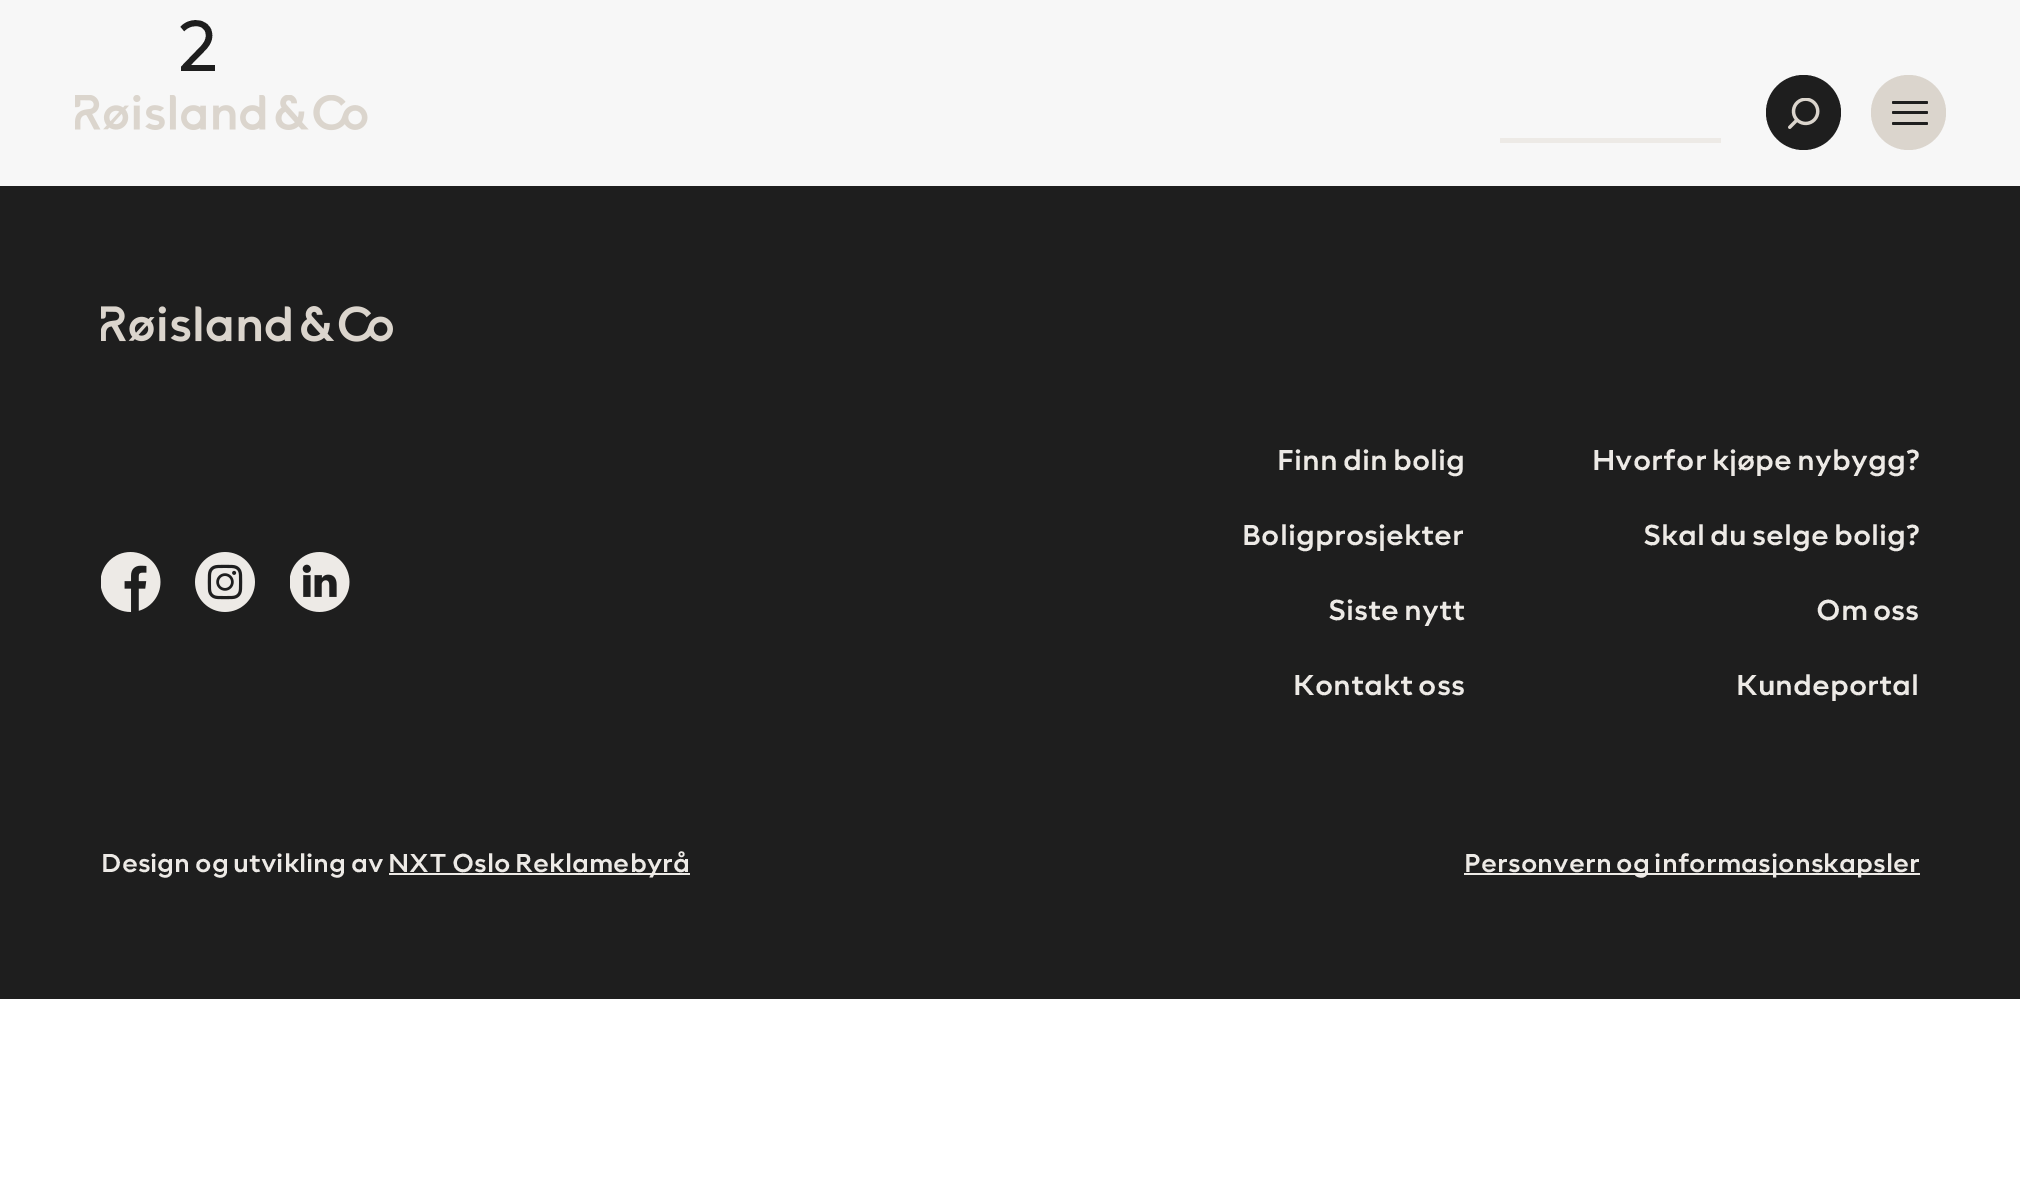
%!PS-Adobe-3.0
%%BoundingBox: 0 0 2020 1183
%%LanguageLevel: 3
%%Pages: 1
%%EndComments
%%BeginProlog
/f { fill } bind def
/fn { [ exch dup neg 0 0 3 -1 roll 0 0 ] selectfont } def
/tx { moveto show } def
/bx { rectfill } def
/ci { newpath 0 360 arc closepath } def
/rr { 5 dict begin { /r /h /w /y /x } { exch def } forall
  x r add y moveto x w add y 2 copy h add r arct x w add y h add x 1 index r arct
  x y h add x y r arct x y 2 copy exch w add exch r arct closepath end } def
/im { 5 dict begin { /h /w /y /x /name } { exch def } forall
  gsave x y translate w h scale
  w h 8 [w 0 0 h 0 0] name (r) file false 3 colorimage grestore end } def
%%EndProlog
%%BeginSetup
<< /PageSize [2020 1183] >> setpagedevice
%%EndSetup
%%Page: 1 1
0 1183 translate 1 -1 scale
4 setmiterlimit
1 setgray
0 0 2020 1183 bx
0.969 setgray
0 0 2020 186 bx
/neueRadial-Regular 75 fn
0.118 setgray
(2) 178 71 tx
(image0.raw) 75 95 293 36 im
1803.5 112.5 37.5 ci f
(image1.raw) 1788 98 32 31 im
0.859 0.835 0.804 setrgbcolor
1908.5 112.5 37.5 ci f
0.118 setgray
1892 101 36 3 1.5 rr f
1892 111 36 3 1.5 rr f
1892 122 36 3 1.5 rr f
0.929 0.918 0.902 setrgbcolor
1500 138 221 5 bx
0.118 setgray
0 186 2020 813 bx
(image2.raw) 101 306 292 36 im
(image3.raw) 101 552 60 60 im
(image4.raw) 195 552 60 60 im
(image5.raw) 290 552 60 60 im
/neueRadial-Medium 30 fn
0.929 0.918 0.902 setrgbcolor
(Finn din bolig) 1277 470 tx
(Boligprosjekter) 1242 545 tx
(Siste nytt) 1328 620 tx
(Kontakt oss) 1293 695 tx
(Hvorfor kjøpe nybygg?) 1592 470 tx
(Skal du selge bolig?) 1643 545 tx
(Om oss) 1816 620 tx
(Kundeportal) 1736 695 tx
/neueRadial-Medium 27 fn
(Design og utvikling av) 101 872 tx
389 873 301 2 bx
(NXT Oslo Reklamebyrå) 388 872 tx
1464 873 456 2 bx
(Personvern og informasjonskapsler) 1464 872 tx
showpage
%%EOF
